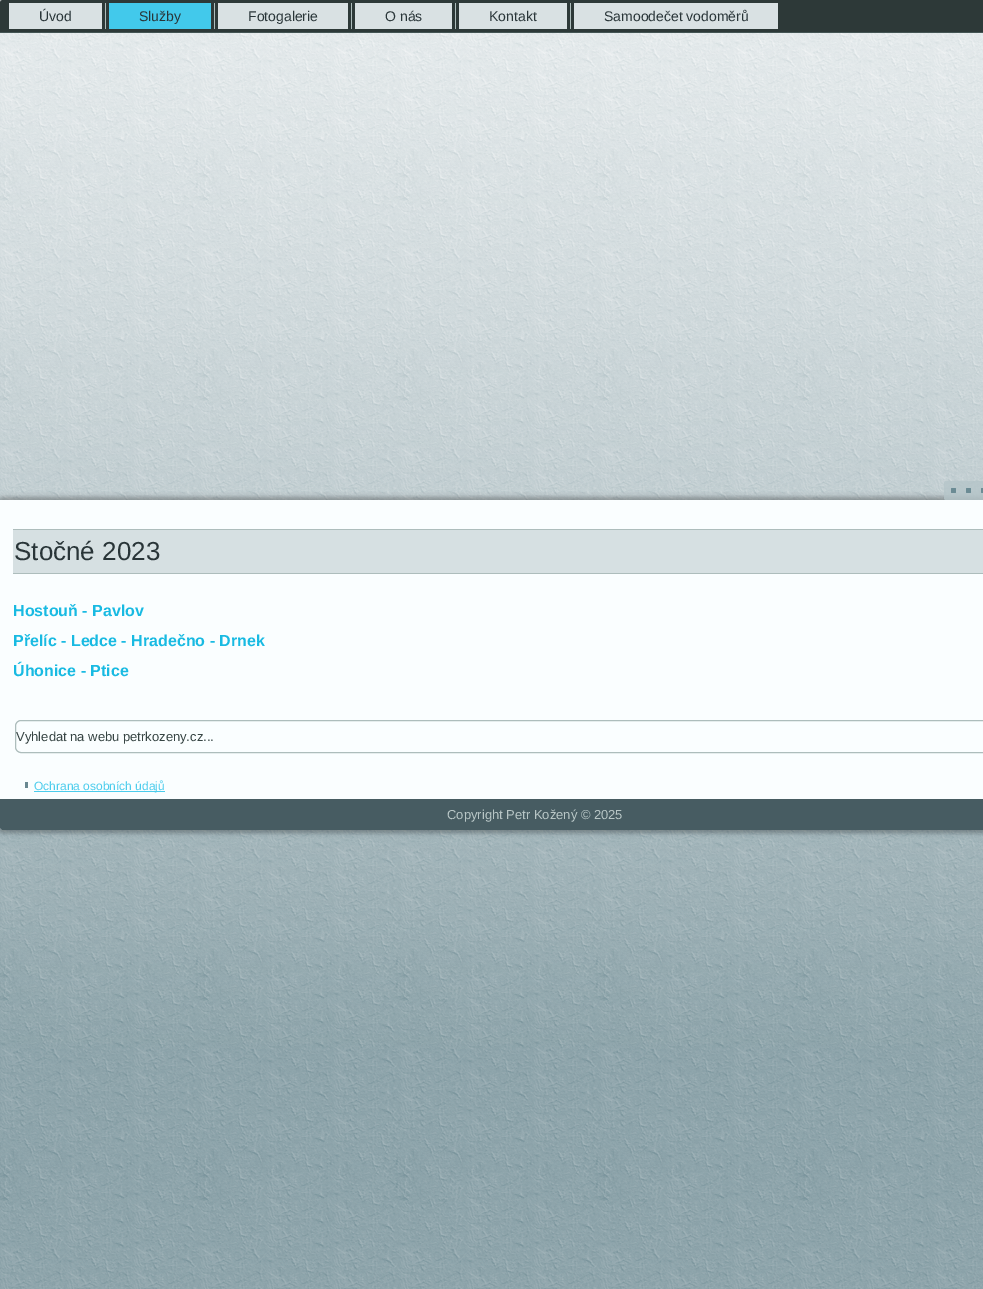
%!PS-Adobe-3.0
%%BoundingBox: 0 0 983 1289
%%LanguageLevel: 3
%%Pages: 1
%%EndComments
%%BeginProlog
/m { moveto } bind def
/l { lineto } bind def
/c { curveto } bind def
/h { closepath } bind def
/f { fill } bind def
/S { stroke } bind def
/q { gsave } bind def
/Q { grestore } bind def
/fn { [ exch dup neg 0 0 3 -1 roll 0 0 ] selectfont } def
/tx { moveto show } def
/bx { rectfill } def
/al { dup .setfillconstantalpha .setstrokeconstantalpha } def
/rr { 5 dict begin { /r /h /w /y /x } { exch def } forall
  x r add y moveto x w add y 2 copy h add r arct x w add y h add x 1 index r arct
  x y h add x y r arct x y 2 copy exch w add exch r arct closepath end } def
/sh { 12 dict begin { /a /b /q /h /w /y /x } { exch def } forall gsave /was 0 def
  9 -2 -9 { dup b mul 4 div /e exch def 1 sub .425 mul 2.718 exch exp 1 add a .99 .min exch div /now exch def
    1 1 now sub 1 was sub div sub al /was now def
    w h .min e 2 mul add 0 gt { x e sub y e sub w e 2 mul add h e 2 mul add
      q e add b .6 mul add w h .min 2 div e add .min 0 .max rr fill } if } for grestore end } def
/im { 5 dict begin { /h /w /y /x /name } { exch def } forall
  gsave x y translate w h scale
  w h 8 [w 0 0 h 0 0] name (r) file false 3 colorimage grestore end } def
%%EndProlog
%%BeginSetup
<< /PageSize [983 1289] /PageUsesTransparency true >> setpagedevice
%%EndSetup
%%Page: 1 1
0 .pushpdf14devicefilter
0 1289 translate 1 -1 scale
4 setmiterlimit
1 setgray
0 0 983 1289 bx
(image0.raw) 0 0 983 1289 im
q
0 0 m 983 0 l 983 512 l 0 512 l h 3 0 m 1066 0 l 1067.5 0 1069 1.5 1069 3 c 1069 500 l 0 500 l 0 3 l 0 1.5 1.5 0 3 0 c h eoclip newpath
0 setgray
-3 -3 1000 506 6 2.5 0.3 sh
Q
0.176 0.224 0.22 setrgbcolor
3 0 m 983 0 l 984.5 0 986 1.5 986 3 c 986 33 l 0 33 l 0 3 l 0 1.5 1.5 0 3 0 c h f
0.267 0.333 0.329 setrgbcolor
0 32 983 1 bx
0.851 0.882 0.89 setrgbcolor
9 3 93 26 bx
/LiberationSans-Regular 14 fn
0.161 0.208 0.22 setrgbcolor
(Úvod) 39 21 tx
0.678 0.741 0.737 setrgbcolor
105 3 1 26 bx
0.259 0.788 0.922 setrgbcolor
109 3 102 26 bx
0.161 0.208 0.22 setrgbcolor
(Služby) 139 21 tx
0.678 0.741 0.737 setrgbcolor
214 3 1 26 bx
0.851 0.882 0.89 setrgbcolor
218 3 130 26 bx
0.161 0.208 0.22 setrgbcolor
(Fotogalerie) 248 21 tx
0.678 0.741 0.737 setrgbcolor
351 3 1 26 bx
0.851 0.882 0.89 setrgbcolor
355 3 97 26 bx
0.161 0.208 0.22 setrgbcolor
(O nás) 385 21 tx
0.678 0.741 0.737 setrgbcolor
455 3 1 26 bx
0.851 0.882 0.89 setrgbcolor
459 3 108 26 bx
0.161 0.208 0.22 setrgbcolor
(Kontakt) 489 21 tx
0.678 0.741 0.737 setrgbcolor
570 3 1 26 bx
0.851 0.882 0.89 setrgbcolor
574 3 204 26 bx
0.161 0.208 0.22 setrgbcolor
(Samoodečet vodoměrů) 604 21 tx
0 setgray
-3 497 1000 336 6 2.5 0.3 sh
0.8 al
0.71 0.773 0.788 setrgbcolor
944 481 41 19 2 rr f
1 al
0.42 0.545 0.58 setrgbcolor
951 488 5 5 1 rr f
966 488 5 5 1 rr f
981 488 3 5 1 rr f
0.98 0.996 1 setrgbcolor
0 500 m 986 500 l 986 827 l 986 828.5 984.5 830 983 830 c 3 830 l 1.5 830 0 828.5 0 827 c h f
0.839 0.878 0.886 setrgbcolor
13 530 970 43 bx
0.678 0.741 0.737 setrgbcolor
13 529 970 1 bx
13 573 970 1 bx
/LiberationSans-Regular 26 fn
0.161 0.208 0.22 setrgbcolor
(Stočné 2023) 14 560 tx
/LiberationSans-Bold 16 fn
0.094 0.729 0.886 setrgbcolor
(Hostouň - Pavlov) 13 616 tx
(Přelíc - Ledce - Hradečno - Drnek) 13 646 tx
(Úhonice - Ptice) 13 676 tx
0.678 0.741 0.737 setrgbcolor
15.5 720.5 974 32 5.5 rr S
/LiberationSans-Regular 13 fn
0.212 0.267 0.263 setrgbcolor
(Vyhledat na webu petrkozeny.cz...) 16 741 tx
0.412 0.533 0.569 setrgbcolor
25 782 3 6 bx
0.294 0.8 0.925 setrgbcolor
34 791 131 1 bx
/LiberationSans-Regular 12 fn
(Ochrana osobních údajů) 34 790 tx
0.278 0.361 0.384 setrgbcolor
0 799 m 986 799 l 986 827 l 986 828.5 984.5 830 983 830 c 3 830 l 1.5 830 0 828.5 0 827 c h f
/LiberationSans-Regular 13 fn
0.722 0.776 0.776 setrgbcolor
(Copyright Petr Kožený © 2025) 447 819 tx
.poppdf14devicefilter showpage
%%EOF
